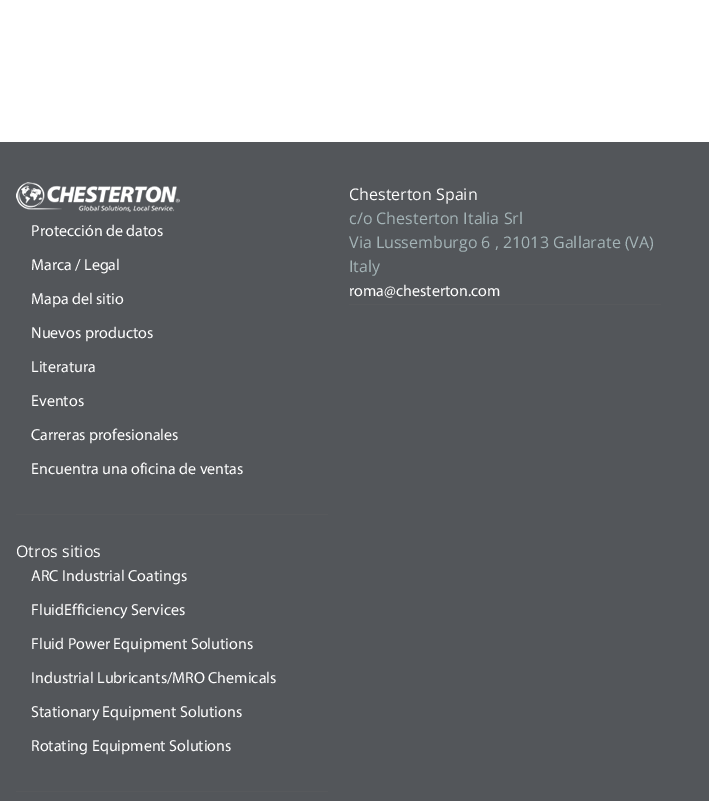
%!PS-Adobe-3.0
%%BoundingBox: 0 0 709 801
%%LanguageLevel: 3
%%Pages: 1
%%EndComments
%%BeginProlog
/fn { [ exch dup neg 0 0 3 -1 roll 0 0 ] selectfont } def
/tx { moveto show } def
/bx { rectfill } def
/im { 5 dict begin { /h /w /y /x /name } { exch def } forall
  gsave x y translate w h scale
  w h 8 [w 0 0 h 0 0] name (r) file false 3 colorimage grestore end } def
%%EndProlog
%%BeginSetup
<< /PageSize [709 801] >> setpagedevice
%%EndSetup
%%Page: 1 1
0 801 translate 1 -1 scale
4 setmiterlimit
1 setgray
0 0 709 801 bx
0.325 0.337 0.353 setrgbcolor
0 142 709 659 bx
(image0.raw) 16 182 164 30 im
0.341 0.349 0.361 setrgbcolor
16 514 312 1 bx
/Myriad-Regular 16 fn
1 setgray
(Protección de datos) 31 236 tx
(Marca / Legal) 31 270 tx
(Mapa del sitio) 31 304 tx
(Nuevos productos) 31 338 tx
(Literatura) 31 372 tx
(Eventos) 31 406 tx
(Carreras profesionales) 31 440 tx
(Encuentra una oficina de ventas) 31 474 tx
0.341 0.349 0.361 setrgbcolor
349 304 312 1 bx
/OpenSans-Regular 16 fn
1 setgray
(Chesterton Spain) 349 200 tx
0.643 0.706 0.718 setrgbcolor
(c/o Chesterton Italia Srl) 349 224 tx
(Via Lussemburgo 6 , 21013 Gallarate \(VA\)) 349 248 tx
(Italy) 349 272 tx
/Myriad-Regular 16 fn
1 setgray
(roma@chesterton.com) 349 296 tx
0.341 0.349 0.361 setrgbcolor
16 791 312 1 bx
/OpenSans-Regular 16 fn
1 setgray
(Otros sitios) 16 557 tx
/Myriad-Regular 16 fn
(ARC Industrial Coatings) 31 581 tx
(FluidEfficiency Services) 31 615 tx
(Fluid Power Equipment Solutions) 31 649 tx
(Industrial Lubricants/MRO Chemicals) 31 683 tx
(Stationary Equipment Solutions) 31 717 tx
(Rotating Equipment Solutions) 31 751 tx
showpage
%%EOF
